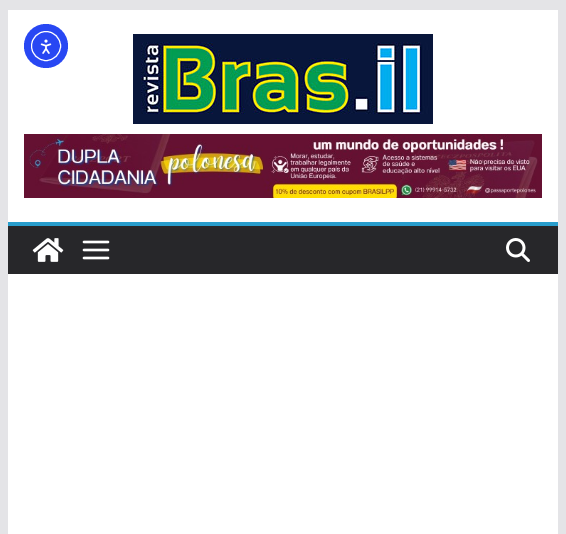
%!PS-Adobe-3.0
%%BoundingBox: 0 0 566 534
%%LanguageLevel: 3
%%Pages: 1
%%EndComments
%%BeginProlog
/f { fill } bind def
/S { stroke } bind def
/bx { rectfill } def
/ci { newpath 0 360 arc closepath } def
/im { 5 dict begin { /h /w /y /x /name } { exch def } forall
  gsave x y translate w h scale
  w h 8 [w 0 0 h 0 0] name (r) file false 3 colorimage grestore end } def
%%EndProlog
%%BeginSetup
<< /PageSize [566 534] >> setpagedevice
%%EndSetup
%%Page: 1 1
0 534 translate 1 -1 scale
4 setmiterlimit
0.894 0.894 0.906 setrgbcolor
0 0 566 534 bx
1 setgray
8 10 550 524 bx
(image0.raw) 133 34 300 90 im
(image1.raw) 24 134 518 64 im
0.153 0.153 0.165 setrgbcolor
8 226 550 48 bx
0.157 0.616 0.8 setrgbcolor
8 222 550 4 bx
(image2.raw) 32 238 32 24 im
(image3.raw) 82 240 28 20 im
(image4.raw) 506 238 24 24 im
0.157 0.278 0.953 setrgbcolor
46 46 22 ci f
1 setgray
46 46 14.5 ci S
(image5.raw) 40 39 12 15 im
showpage
%%EOF
